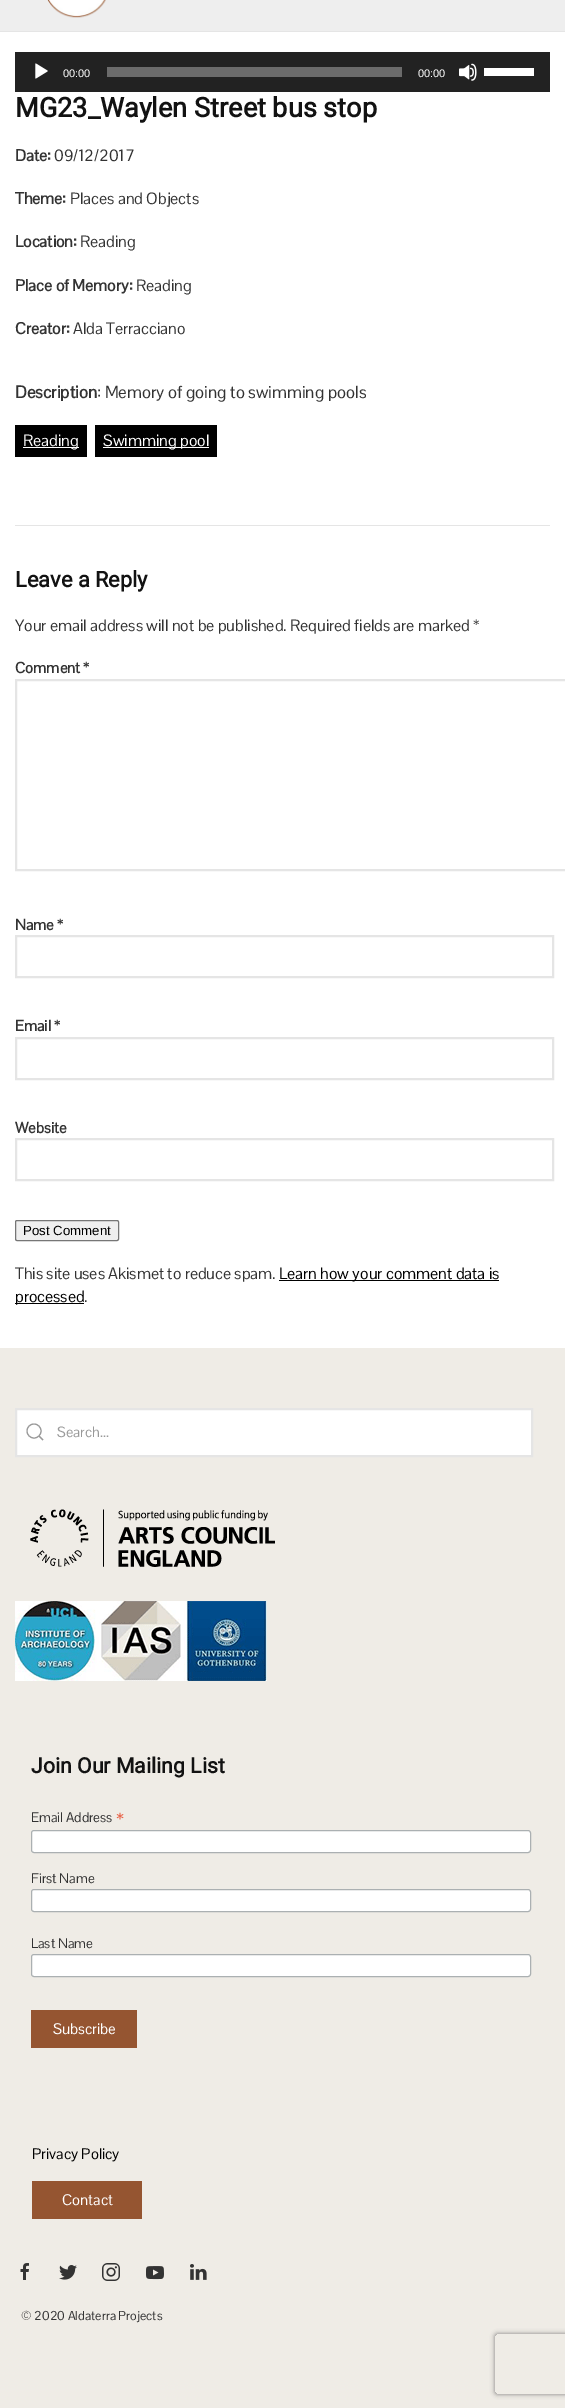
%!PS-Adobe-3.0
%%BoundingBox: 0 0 565 2408
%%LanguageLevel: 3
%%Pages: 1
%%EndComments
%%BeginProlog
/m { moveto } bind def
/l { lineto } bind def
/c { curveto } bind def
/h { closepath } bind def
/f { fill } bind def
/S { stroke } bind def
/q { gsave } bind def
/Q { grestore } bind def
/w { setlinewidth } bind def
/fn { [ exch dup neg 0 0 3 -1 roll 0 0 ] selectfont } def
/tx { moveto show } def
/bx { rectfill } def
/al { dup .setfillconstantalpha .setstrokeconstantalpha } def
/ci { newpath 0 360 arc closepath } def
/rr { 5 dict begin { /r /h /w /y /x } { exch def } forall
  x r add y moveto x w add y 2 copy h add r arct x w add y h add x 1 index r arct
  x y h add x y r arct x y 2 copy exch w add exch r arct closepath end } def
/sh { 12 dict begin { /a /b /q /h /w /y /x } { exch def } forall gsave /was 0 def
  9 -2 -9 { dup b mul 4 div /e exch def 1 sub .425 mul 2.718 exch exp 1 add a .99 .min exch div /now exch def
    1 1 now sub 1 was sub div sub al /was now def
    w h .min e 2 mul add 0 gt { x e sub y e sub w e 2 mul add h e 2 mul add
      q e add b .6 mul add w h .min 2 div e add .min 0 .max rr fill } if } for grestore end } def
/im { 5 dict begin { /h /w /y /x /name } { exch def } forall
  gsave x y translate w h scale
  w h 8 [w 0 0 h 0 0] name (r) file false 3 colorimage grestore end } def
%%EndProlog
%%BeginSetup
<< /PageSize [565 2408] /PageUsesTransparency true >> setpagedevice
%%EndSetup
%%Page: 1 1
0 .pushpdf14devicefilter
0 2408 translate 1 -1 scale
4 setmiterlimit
1 setgray
0 0 565 2408 bx
0.933 setgray
0 0 565 31 bx
0.898 setgray
0 31 565 1 bx
(image0.raw) 47 0 59 18 im
0.133 setgray
15 52 535 40 bx
(image1.raw) 35 63 13 16 im
/LiberationSans-Regular 11 fn
1 setgray
(00:00) 63 77 tx
0.42 setgray
107 67 295 10 bx
1 setgray
(00:00) 418 77 tx
(image2.raw) 459 63 18 18 im
484 68 50 8 bx
/Roboto-Bold 27.1 fn
0.071 setgray
(MG23_Waylen Street bus stop) 15 117 tx
/PontanoSans-Bold 16 fn
0.2 setgray
(Date:) 15 161 tx
/PontanoSans-Regular 16 fn
(09/12/2017) 54 161 tx
/PontanoSans-Bold 16 fn
(Theme:) 15 204 tx
/PontanoSans-Regular 16 fn
(Places and Objects) 70 204 tx
/PontanoSans-Bold 16 fn
(Location:) 15 247 tx
/PontanoSans-Regular 16 fn
(Reading) 80 247 tx
/PontanoSans-Bold 16 fn
(Place of Memory:) 15 291 tx
/PontanoSans-Regular 16 fn
(Reading) 136 291 tx
/PontanoSans-Bold 16 fn
(Creator:) 15 334 tx
/PontanoSans-Regular 16 fn
(Alda Terracciano) 73 334 tx
/PontanoSans-Bold 17 fn
(Description) 15 398 tx
/PontanoSans-Regular 17 fn
(: Memory of going to swimming pools) 97 398 tx
0 setgray
15 425 72 32 bx
1 setgray
23 447 56 1 bx
/PontanoSans-Regular 16 fn
(Reading) 23 446 tx
0 setgray
95 425 122 32 bx
1 setgray
103 447 106 1 bx
(Swimming pool) 103 446 tx
0.898 setgray
15 525 535 1 bx
/Roboto-Bold 21.75 fn
0.071 setgray
(Leave a Reply) 15 587 tx
/PontanoSans-Regular 16 fn
0.2 setgray
(Your email address will not be published. Required fields are marked *) 15 631 tx
/PontanoSans-Bold 15 fn
(Comment *) 15 673 tx
0.898 setgray
2 w
16 680 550 190 rectstroke
0.2 setgray
(Name *) 15 930 tx
0.898 setgray
16 936 537 41 rectstroke
0.2 setgray
(Email *) 15 1031 tx
0.898 setgray
16 1038 537 41 rectstroke
0.2 setgray
(Website) 15 1133 tx
0.898 setgray
16 1139 537 41 rectstroke
0.937 setgray
15.5 1220.5 103 20 1.5 rr q f Q
0.463 setgray
1 w
S
/LiberationSans-Regular 13.25 fn
0 setgray
(Post Comment) 23 1235 tx
/PontanoSans-Regular 16 fn
0.2 setgray
(This site uses Akismet to reduce spam.) 15 1279 tx
0 setgray
279 1280 220 1 bx
(Learn how your comment data is) 279 1279 tx
15 1303 69 1 bx
(processed) 15 1302 tx
0.2 setgray
(.) 84 1302 tx
0.937 0.925 0.902 setrgbcolor
0 1348 565 1060 bx
1 setgray
16 1409 m 532 1409 l 532 1456 l 16 1456 l h q f Q
0.898 setgray
2 w
S
0.6 setgray
1.1 w
34 1431 7 ci S
39 1436 m 43 1440 l h S
/PontanoSans-Regular 14.5 fn
(Search...) 57 1437 tx
(image3.raw) 30 1509 245 58 im
(image4.raw) 15 1601 252 80 im
/Roboto-Bold 21.25 fn
0.071 setgray
(Join Our Mailing List) 31 1773 tx
/PontanoSans-Regular 13.5 fn
0.2 setgray
(Email Address) 31 1822 tx
/PontanoSans-Regular 20 fn
0.91 0.361 0.255 setrgbcolor
(*) 116 1827 tx
1 setgray
31.5 1830.5 499 22 2.5 rr q f Q
0.671 0.69 0.698 setrgbcolor
1 w
S
/PontanoSans-Regular 13.5 fn
0.2 setgray
(First Name) 31 1883 tx
1 setgray
31.5 1889.5 499 22 2.5 rr q f Q
0.671 0.69 0.698 setrgbcolor
S
0.2 setgray
(Last Name) 31 1948 tx
1 setgray
31.5 1954.5 499 22 2.5 rr q f Q
0.671 0.69 0.698 setrgbcolor
S
0.584 0.333 0.192 setrgbcolor
31 2010 106 38 bx
/PontanoSans-Regular 15 fn
1 setgray
(Subscribe) 53 2034 tx
0 setgray
(Privacy Policy) 32 2159 tx
0.584 0.333 0.192 setrgbcolor
32 2181 110 38 bx
1 setgray
(Contact) 62 2205 tx
(image5.raw) 20 2263 9 17 im
(image6.raw) 59 2265 18 15 im
(image7.raw) 102 2263 18 18 im
(image8.raw) 146 2266 18 14 im
(image9.raw) 190 2264 17 16 im
/PontanoSans-Regular 12.6 fn
0.2 setgray
(© 2020 Aldaterra Projects) 21 2320 tx
q
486 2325 m 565 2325 l 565 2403 l 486 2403 l h 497 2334 m 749 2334 l 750 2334 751 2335 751 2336 c 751 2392 l 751 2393 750 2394 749 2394 c 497 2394 l 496 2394 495 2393 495 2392 c 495 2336 l 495 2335 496 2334 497 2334 c h eoclip newpath
0.502 setgray
495 2334 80 60 2 2.5 1 sh
Q
.poppdf14devicefilter showpage
%%EOF
